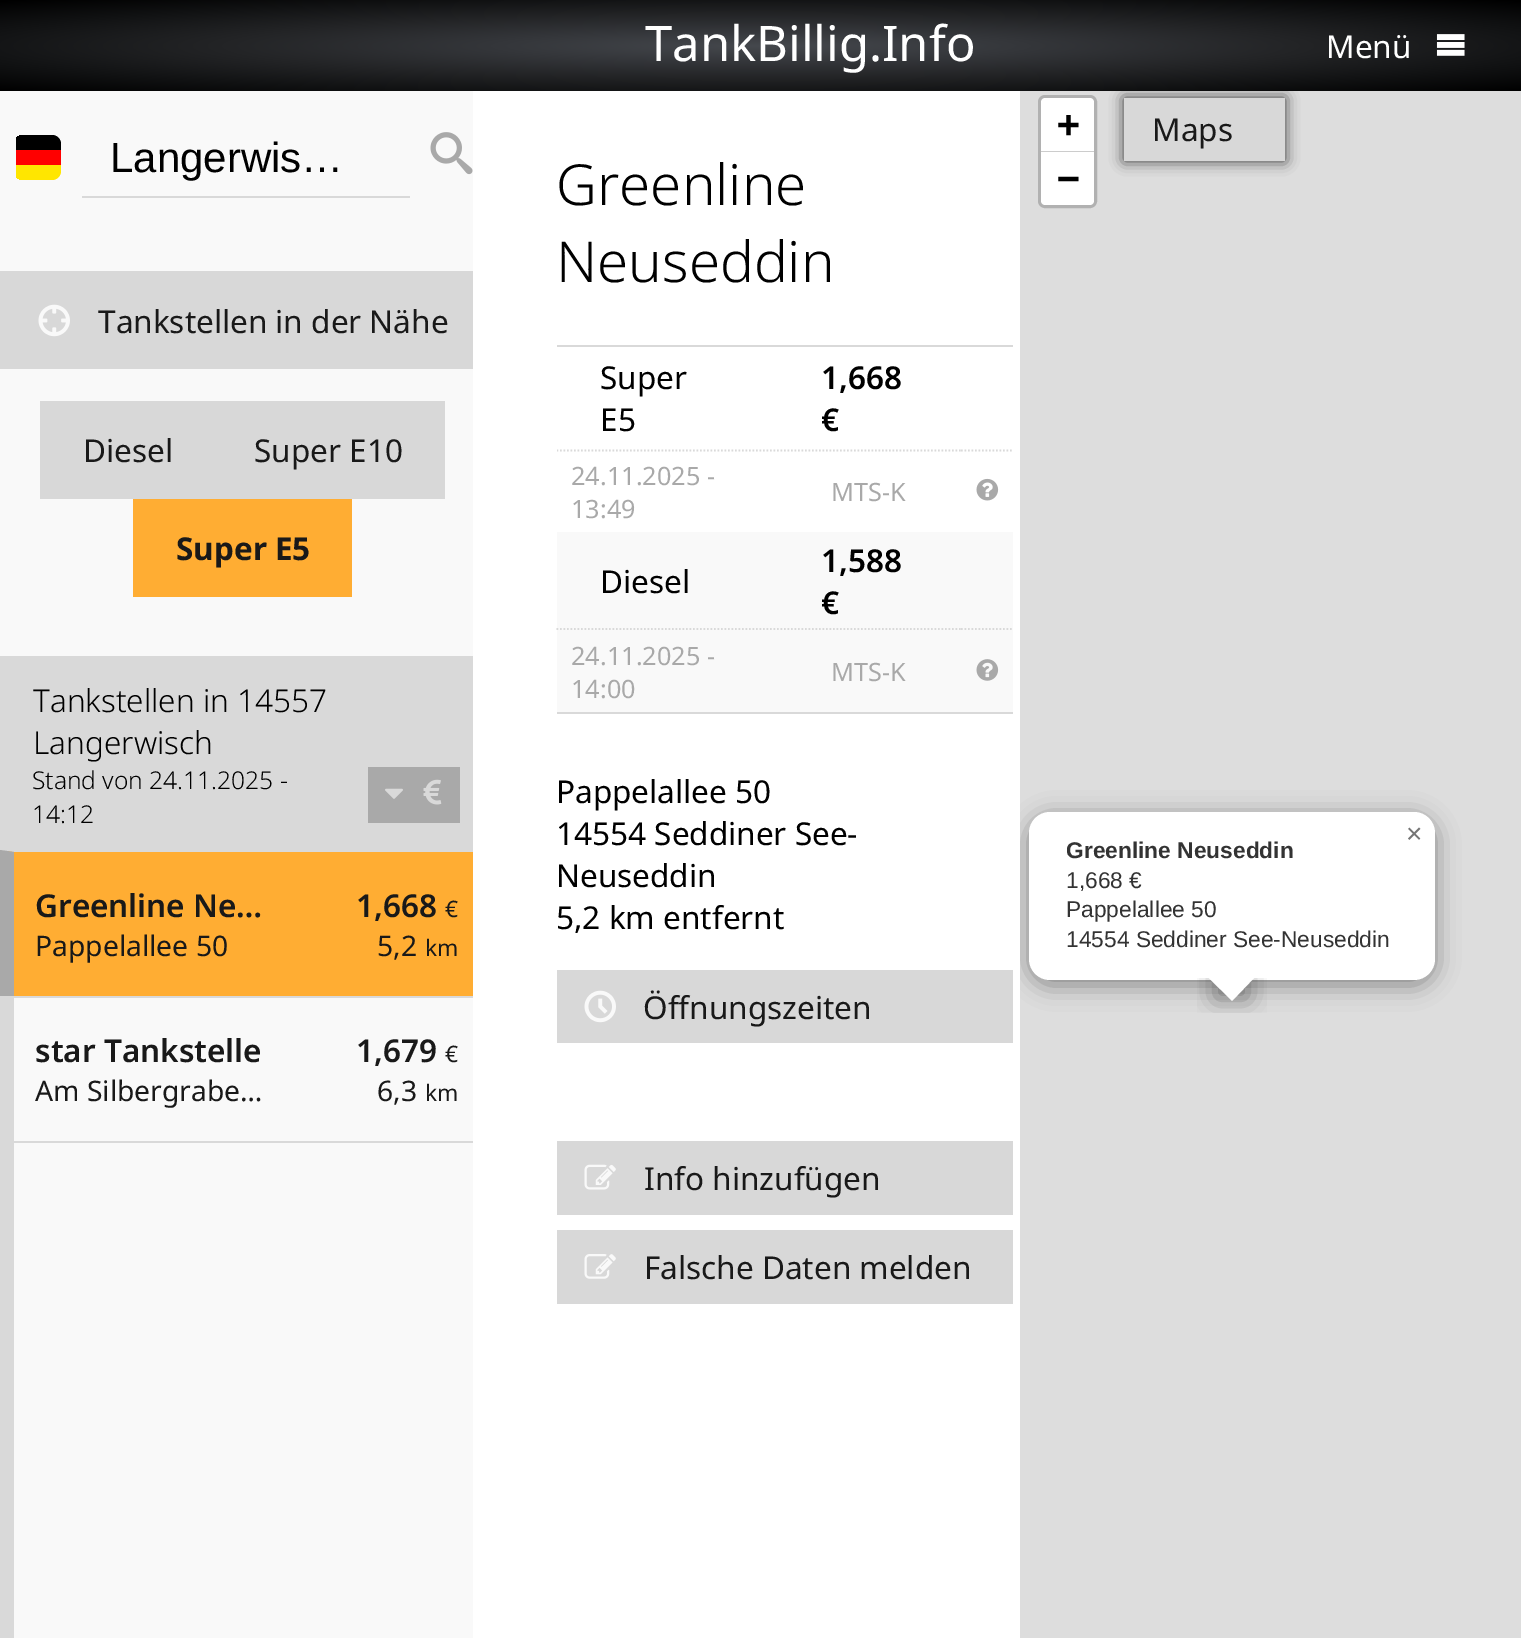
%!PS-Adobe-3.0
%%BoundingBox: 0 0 1521 1638
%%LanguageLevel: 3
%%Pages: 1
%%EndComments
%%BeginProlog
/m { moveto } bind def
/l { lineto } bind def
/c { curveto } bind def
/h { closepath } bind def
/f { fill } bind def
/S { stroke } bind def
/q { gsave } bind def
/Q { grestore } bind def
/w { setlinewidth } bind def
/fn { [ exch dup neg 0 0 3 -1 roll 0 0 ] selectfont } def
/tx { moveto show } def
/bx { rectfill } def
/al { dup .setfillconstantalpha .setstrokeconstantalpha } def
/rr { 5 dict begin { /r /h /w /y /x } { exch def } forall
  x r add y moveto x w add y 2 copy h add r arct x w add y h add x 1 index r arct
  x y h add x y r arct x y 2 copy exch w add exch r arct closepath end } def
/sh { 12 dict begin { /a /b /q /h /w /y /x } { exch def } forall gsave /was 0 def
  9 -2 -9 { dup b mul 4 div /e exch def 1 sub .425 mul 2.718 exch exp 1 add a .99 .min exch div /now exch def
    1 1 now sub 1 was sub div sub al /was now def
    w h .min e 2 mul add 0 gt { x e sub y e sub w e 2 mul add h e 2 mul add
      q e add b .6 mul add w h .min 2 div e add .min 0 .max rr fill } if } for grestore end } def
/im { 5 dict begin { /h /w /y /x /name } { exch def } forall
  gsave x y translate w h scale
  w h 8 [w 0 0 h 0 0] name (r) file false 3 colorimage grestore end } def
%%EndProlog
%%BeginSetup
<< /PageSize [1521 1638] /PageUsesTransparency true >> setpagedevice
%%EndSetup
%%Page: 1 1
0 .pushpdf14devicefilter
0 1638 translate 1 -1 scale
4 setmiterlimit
1 setgray
0 0 1521 1638 bx
0.867 setgray
1020 91 501 1547 bx
0 setgray
1124 98 161 63 0 7 0.75 sh
q 0 0 m 1521 0 l 1521 91 l 0 91 l h clip newpath 761 46 translate 1077 64 scale
<< /ShadingType 3 /ColorSpace /DeviceRGB /Coords [0 0 0 0 0 1] /Extend [true true] /Function << /FunctionType 2 /Domain [0 1] /C0 [0.271 0.282 0.302] /C1 [0 0 0] /N 1 >> >> shfill Q
/NotoSans-Regular 49 fn
1 setgray
(TankBillig.Info) 645 61 tx
/NotoSans-Regular 31.5 fn
(Menü) 1326 58 tx
(image0.raw) 1436 34 29 22 im
0.976 setgray
0 91 473 1547 bx
q
14 135 47 45 9 rr clip newpath
1 0.902 0 setrgbcolor
16 165 m 61 165 l 61 171 l 61 176 57 180 52 180 c 16 180 l h f
0 setgray
16 135 m 52 135 l 57 135 61 139 61 144 c 61 150 l 16 150 l h f
Q
1 0 0 setrgbcolor
16 150 45 15 bx
0.851 setgray
82 196 328 2 bx
/LiberationSans-Regular 42 fn
0 setgray
(Langerwis…) 110 172 tx
(image1.raw) 430 132 43 43 im
0.847 setgray
0 271 473 98 bx
(image2.raw) 38 304 32 33 im
/NotoSans-Regular 31.5 fn
0.098 setgray
(Tankstellen in der Nähe) 98 333 tx
0.847 setgray
40 401 405 98 bx
0.098 setgray
(Diesel) 83 462 tx
(Super E10) 254 462 tx
1 0.678 0.2 setrgbcolor
133 499 219 98 bx
/NotoSans-Bold 31.5 fn
0.098 setgray
(Super E5) 176 560 tx
0.851 setgray
0 656 473 195 bx
/NotoSans-Light 31.5 fn
0 setgray
(Tankstellen in 14557) 33 712 tx
(Langerwisch) 33 754 tx
/NotoSans-Light 24.5 fn
(Stand von 24.11.2025 -) 32 789 tx
(14:12) 32 823 tx
0.663 setgray
368 767 92 56 bx
(image3.raw) 385 788 18 11 im
(image4.raw) 423 779 19 26 im
1 0.678 0.2 setrgbcolor
7 851 466 145 bx
q
0 77 473 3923 rectclip
0.851 setgray
0 850 m 508 850 l 508 852 l 14 852 l h f
Q
0.663 setgray
0 996 m 0 850 l 14 852 l 14 996 l h f
/NotoSans-SemiBold 31.5 fn
0.098 setgray
(Greenline Ne…) 35 917 tx
/NotoSans-Regular 28.25 fn
(Pappelallee 50) 35 956 tx
/NotoSans-SemiBold 31.5 fn
(1,668) 356 917 tx
/NotoSans-Regular 22.75 fn
(€) 445 917 tx
/NotoSans-Regular 28.25 fn
(5,2) 377 956 tx
/NotoSans-Regular 22.75 fn
(km) 425 956 tx
0.851 setgray
14 996 459 2 bx
0 996 14 642 bx
/NotoSans-SemiBold 31.5 fn
0.098 setgray
(star Tankstelle) 35 1062 tx
/NotoSans-Regular 28.25 fn
(Am Silbergrabe…) 35 1101 tx
/NotoSans-SemiBold 31.5 fn
(1,679) 356 1062 tx
/NotoSans-Regular 22.75 fn
(€) 445 1062 tx
/NotoSans-Regular 28.25 fn
(6,3) 377 1101 tx
/NotoSans-Regular 22.75 fn
(km) 425 1101 tx
0.851 setgray
14 1141 459 2 bx
/NotoSans-Light 56.5 fn
0 setgray
(Greenline) 556 205 tx
(Neuseddin) 556 282 tx
0.851 setgray
557 345 456 2 bx
557 712 456 2 bx
/NotoSans-Regular 31.5 fn
0 setgray
(Super) 600 389 tx
(E5) 600 431 tx
/NotoSans-SemiBold 31.5 fn
(1,668) 821 389 tx
(€) 821 431 tx
q
557 112 456 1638 rectclip
0.851 setgray
1.8 w
[1.75 1.75] 0 setdash
556.5 450.5 m 777 450.5 l S
Q
/NotoSans-Regular 25.25 fn
0.663 setgray
(24.11.2025 -) 571 485 tx
(13:49) 571 518 tx
0.851 setgray
1.8 w
[1.75 1.75] 0 setdash
777 450.5 m 961 450.5 l S
0.663 setgray
(MTS-K) 831 501 tx
0.851 setgray
961 450.5 m 1013 450.5 l S
(image5.raw) 976 478 23 23 im
0.976 setgray
557 532 456 180 bx
/NotoSans-Regular 31.5 fn
0 setgray
(Diesel) 600 593 tx
/NotoSans-SemiBold 31.5 fn
(1,588) 821 572 tx
(€) 821 614 tx
0.851 setgray
556.5 629 m 777 629 l S
/NotoSans-Regular 25.25 fn
0.663 setgray
(24.11.2025 -) 571 665 tx
(14:00) 571 698 tx
0.851 setgray
777 629 m 961 629 l S
0.663 setgray
(MTS-K) 831 681 tx
0.851 setgray
961 629 m 1013 629 l S
(image6.raw) 976 659 23 22 im
/NotoSans-Regular 31.5 fn
0 setgray
(Pappelallee 50) 556 803 tx
(14554 Seddiner See-) 556 845 tx
(Neuseddin) 556 887 tx
(5,2 km entfernt) 556 929 tx
0.847 setgray
557 970 456 73 bx
(image7.raw) 584 990 32 33 im
0.098 setgray
(Öffnungszeiten) 643 1019 tx
0.847 setgray
557 1141 456 74 bx
(image8.raw) 584 1164 32 26 im
0.098 setgray
(Info hinzufügen) 644 1190 tx
0.847 setgray
557 1230 456 74 bx
(image9.raw) 584 1254 32 25 im
0.098 setgray
(Falsche Daten melden) 644 1279 tx
0.694 setgray
4 w
[] 0 setdash
1040 97 55 109 5 rr S
1 setgray
1045 98 m 1090 98 l 1092 98 1094 100 1094 102 c 1094 152 l 1041 152 l 1041 102 l 1041 100 1043 98 1045 98 c h f
0.8 setgray
1041 151 53 1 bx
/DejaVuSansMono-Bold 38 fn
0 setgray
(+) 1057 137 tx
1 setgray
1041 152 m 1094 152 l 1094 201 l 1094 203 1092 205 1090 205 c 1045 205 l 1043 205 1041 203 1041 201 c h f
0 setgray
(−) 1057 191 tx
q
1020 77 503 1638 rectclip
1029 817 406 168 21 12 0.4 sh
Q
1 setgray
1029 812 406 168 21 rr f
/LiberationSans-Regular 28 fn
0.459 setgray
(×) 1406 843 tx
/LiberationSans-Bold 22.75 fn
0.2 setgray
(Greenline Neuseddin) 1066 858 tx
/LiberationSans-Regular 22.75 fn
(1,668 €) 1066 888 tx
(Pappelallee 50) 1066 917 tx
(14554 Seddiner See-Neuseddin) 1066 947 tx
q
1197 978 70 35 rectclip
0 setgray
1215 966 33 33 0 12.5 0.4 sh
Q
q
1197 978 70 35 rectclip
1 setgray
1232 954 m 1255 977 l 1232 1001 l 1208 977 l h f
Q
0.847 setgray
1124 98 161 63 bx
/NotoSans-Regular 31.5 fn
0.098 setgray
(Maps) 1152 141 tx
.poppdf14devicefilter showpage
%%EOF
